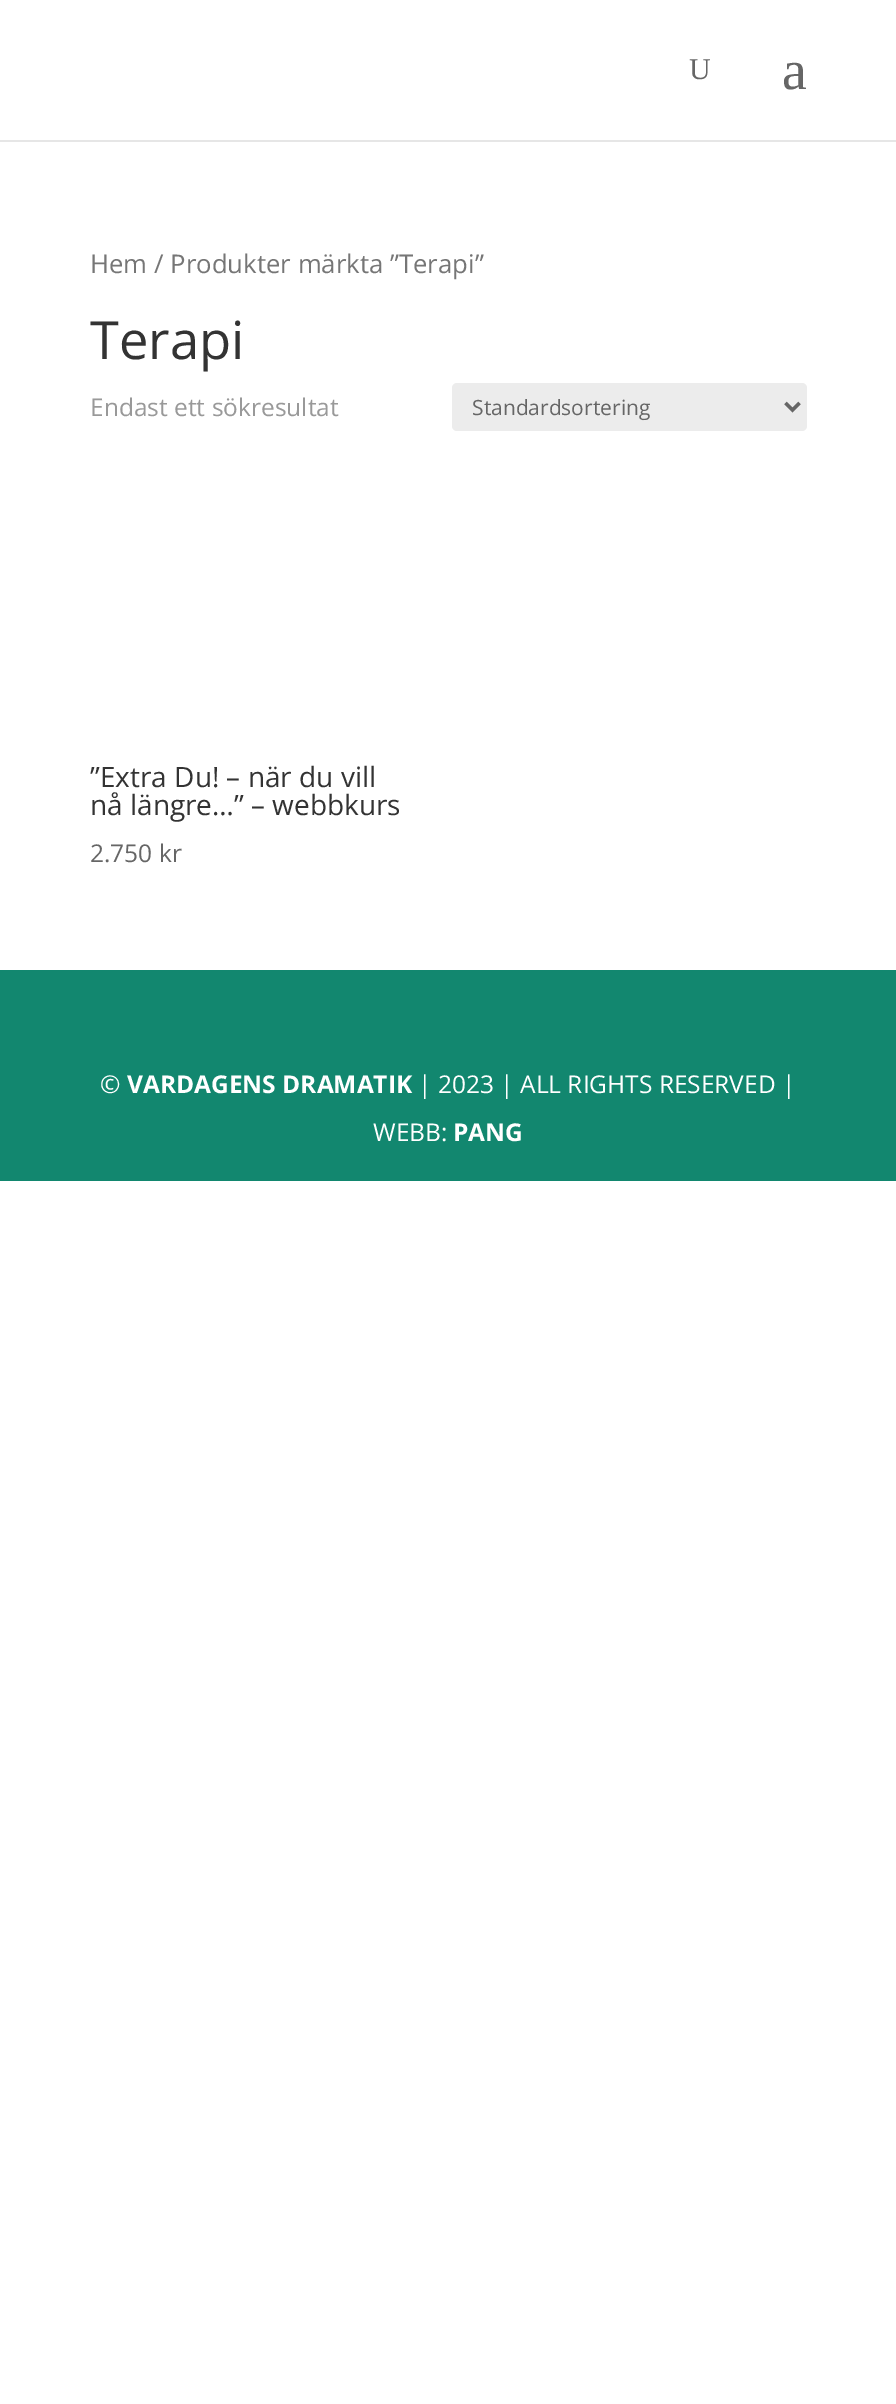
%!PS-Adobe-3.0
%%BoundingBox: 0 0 896 2404
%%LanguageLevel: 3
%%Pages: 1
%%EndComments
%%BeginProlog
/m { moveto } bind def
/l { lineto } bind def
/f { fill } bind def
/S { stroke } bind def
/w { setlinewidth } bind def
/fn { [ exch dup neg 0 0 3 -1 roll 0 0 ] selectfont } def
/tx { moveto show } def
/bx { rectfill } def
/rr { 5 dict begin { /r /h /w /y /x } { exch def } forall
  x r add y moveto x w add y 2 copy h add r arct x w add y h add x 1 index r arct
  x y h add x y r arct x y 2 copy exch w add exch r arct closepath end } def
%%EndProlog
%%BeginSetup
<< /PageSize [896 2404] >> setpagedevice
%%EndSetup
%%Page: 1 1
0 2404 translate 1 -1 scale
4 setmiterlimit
1 setgray
0 0 896 2404 bx
0.902 setgray
0 140 896 2 bx
/LiberationSerif-Regular 30 fn
0.4 setgray
(U) 689 79 tx
/LiberationSerif-Regular 56 fn
(a) 782 89 tx
/OpenSans-Regular 25.75 fn
0.463 setgray
(Hem / Produkter märkta ”Terapi”) 90 273 tx
/OpenSans-Regular 52.5 fn
0.2 setgray
(Terapi) 90 359 tx
/OpenSans-Regular 24.5 fn
0.6 setgray
(Endast ett sökresultat) 90 416 tx
0.925 setgray
452 383 355 48 5 rr f
0.4 setgray
3.5 w
785.5 403 m 792.5 410 l 799.5 403 l S
/OpenSans-Regular 21 fn
(Standardsortering) 472 415 tx
/OpenSans-Regular 28 fn
0.2 setgray
(”Extra Du! – när du vill) 90 787 tx
(nå längre…” – webbkurs) 90 815 tx
/OpenSans-Regular 24.5 fn
0.4 setgray
(2.750 kr) 90 862 tx
0.071 0.529 0.435 setrgbcolor
0 970 896 211 bx
1 setgray
(©) 100 1093 tx
/OpenSans-Bold 24.5 fn
(VARDAGENS DRAMATIK) 127 1093 tx
/OpenSans-Regular 24.5 fn
(| 2023 | ALL RIGHTS RESERVED |) 418 1093 tx
(WEBB:) 373 1141 tx
/OpenSans-Bold 24.5 fn
(PANG) 453 1141 tx
showpage
%%EOF
